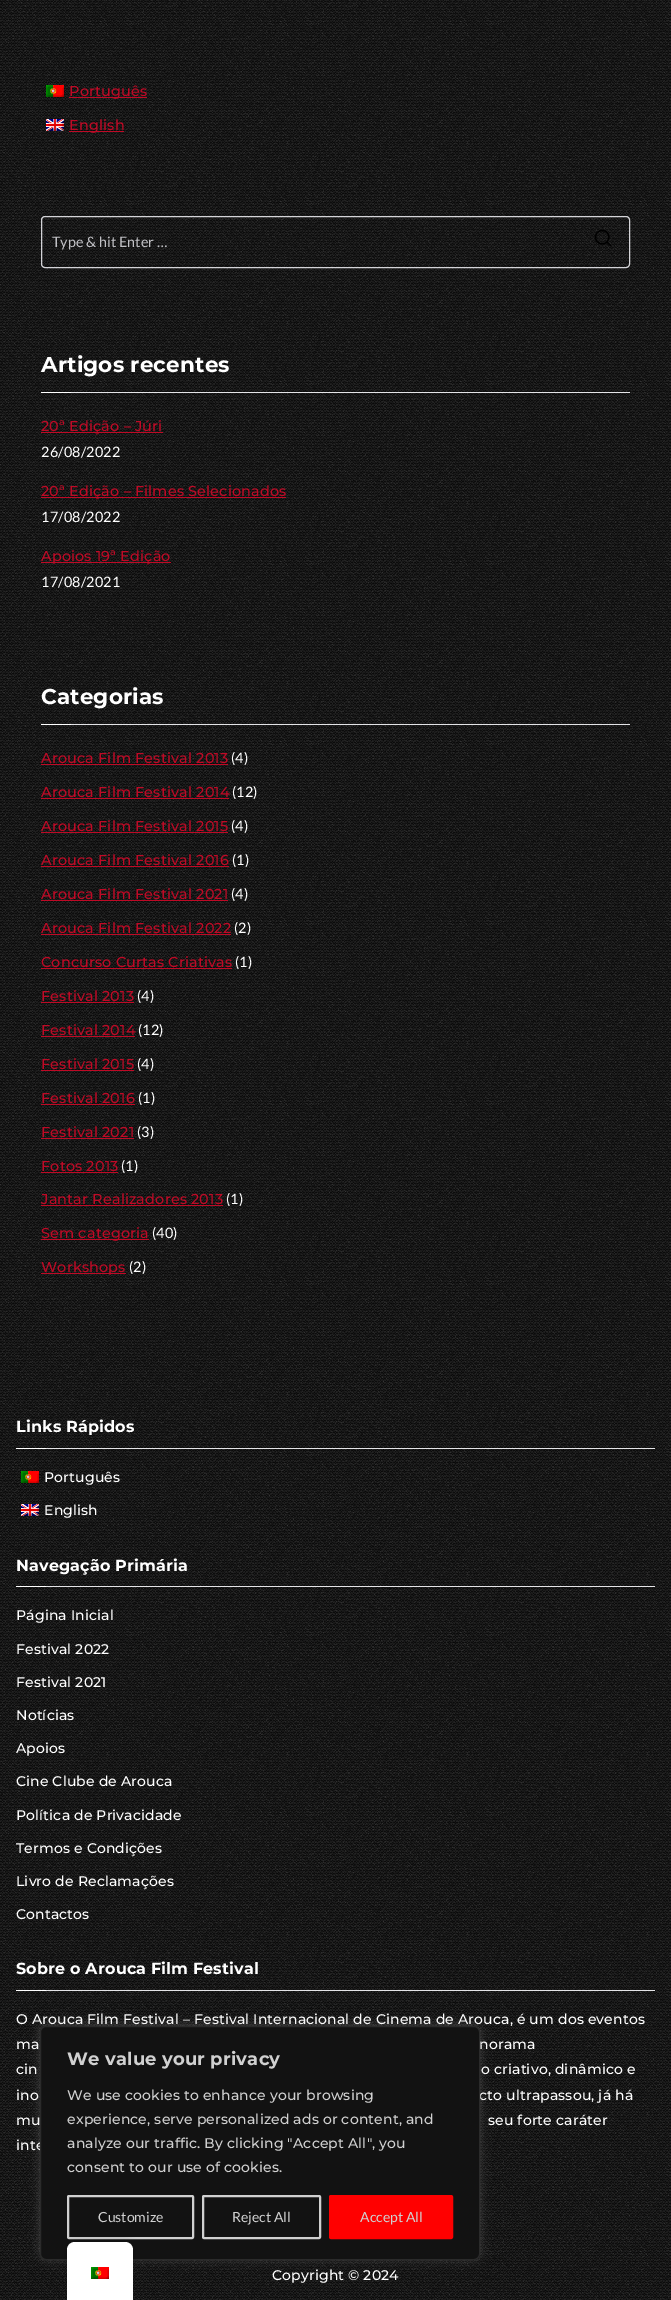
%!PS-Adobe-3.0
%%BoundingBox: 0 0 671 2300
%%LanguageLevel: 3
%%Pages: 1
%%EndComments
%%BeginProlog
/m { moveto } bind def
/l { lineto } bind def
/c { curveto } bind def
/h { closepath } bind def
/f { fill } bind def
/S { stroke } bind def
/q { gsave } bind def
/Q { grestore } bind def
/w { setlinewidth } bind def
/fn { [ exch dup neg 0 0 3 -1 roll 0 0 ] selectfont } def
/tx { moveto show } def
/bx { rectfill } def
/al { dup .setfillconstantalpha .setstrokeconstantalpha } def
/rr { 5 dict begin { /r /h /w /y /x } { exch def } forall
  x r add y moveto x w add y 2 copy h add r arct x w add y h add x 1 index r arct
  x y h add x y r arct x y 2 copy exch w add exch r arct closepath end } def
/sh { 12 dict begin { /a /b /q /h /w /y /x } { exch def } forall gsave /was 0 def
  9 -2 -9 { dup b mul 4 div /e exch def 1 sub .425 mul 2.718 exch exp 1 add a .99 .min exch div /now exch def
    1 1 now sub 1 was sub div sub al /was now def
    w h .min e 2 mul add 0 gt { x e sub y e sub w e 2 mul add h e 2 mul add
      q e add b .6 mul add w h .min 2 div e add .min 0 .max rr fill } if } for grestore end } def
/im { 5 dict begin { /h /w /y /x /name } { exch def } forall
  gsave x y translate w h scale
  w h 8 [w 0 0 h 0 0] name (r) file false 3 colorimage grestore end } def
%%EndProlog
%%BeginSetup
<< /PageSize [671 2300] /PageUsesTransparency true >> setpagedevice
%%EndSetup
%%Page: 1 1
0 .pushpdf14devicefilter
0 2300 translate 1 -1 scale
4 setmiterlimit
1 setgray
0 0 671 2300 bx
(image0.raw) 0 0 671 1357 im
(image1.raw) 46 85 18 12 im
0.749 0.039 0.149 setrgbcolor
69 97 78 1 bx
/Montserrat-Medium 14.4 fn
69 96 m 0.15 0 (Português) ashow
(image2.raw) 46 119 18 12 im
69 131 55 1 bx
69 130 m 0.15 0 (English) ashow
0.831 0.831 0.847 setrgbcolor
41.5 216.5 588 51 3.5 rr S
/Lato-Regular 14.4 fn
0.757 0.757 0.773 setrgbcolor
(Type & hit Enter …) 52 247 tx
(image3.raw) 594 229 18 18 im
0.894 0.894 0.906 setrgbcolor
71 392 559 1 bx
/Montserrat-Bold 21.5 fn
1 setgray
41 372 m 0.15 0 (Artigos recentes) ashow
41 392 30 1 bx
0.749 0.039 0.149 setrgbcolor
41 432 122 1 bx
/Montserrat-Medium 14.4 fn
41 431 m 0.15 0 (20ª Edição – Júri) ashow
/Lato-Regular 14.4 fn
1 setgray
41 457 m 0.15 0 (26/08/2022) ashow
0.749 0.039 0.149 setrgbcolor
41 497 245 1 bx
/Montserrat-Medium 14.4 fn
41 496 m 0.15 0 (20ª Edição – Filmes Selecionados) ashow
/Lato-Regular 14.4 fn
1 setgray
41 522 m 0.15 0 (17/08/2022) ashow
0.749 0.039 0.149 setrgbcolor
41 562 130 1 bx
/Montserrat-Medium 14.4 fn
41 561 m 0.15 0 (Apoios 19ª Edição) ashow
/Lato-Regular 14.4 fn
1 setgray
41 587 m 0.15 0 (17/08/2021) ashow
0.894 0.894 0.906 setrgbcolor
71 724 559 1 bx
/Montserrat-Bold 21.5 fn
1 setgray
41 704 m 0.15 0 (Categorias) ashow
41 724 30 1 bx
/Montserrat-Medium 14.4 fn
0.749 0.039 0.149 setrgbcolor
41 763 m 0.15 0 (Arouca Film Festival 2013) ashow
41 764 187 1 bx
/Lato-Regular 14.4 fn
1 setgray
231 763 m 0.15 0 (\(4\)) ashow
/Montserrat-Medium 14.4 fn
0.749 0.039 0.149 setrgbcolor
41 797 m 0.15 0 (Arouca Film Festival 2014) ashow
41 798 188 1 bx
/Lato-Regular 14.4 fn
1 setgray
232 797 m 0.15 0 (\(12\)) ashow
/Montserrat-Medium 14.4 fn
0.749 0.039 0.149 setrgbcolor
41 831 m 0.15 0 (Arouca Film Festival 2015) ashow
41 832 187 1 bx
/Lato-Regular 14.4 fn
1 setgray
231 831 m 0.15 0 (\(4\)) ashow
/Montserrat-Medium 14.4 fn
0.749 0.039 0.149 setrgbcolor
41 865 m 0.15 0 (Arouca Film Festival 2016) ashow
41 866 188 1 bx
/Lato-Regular 14.4 fn
1 setgray
232 865 m 0.15 0 (\(1\)) ashow
/Montserrat-Medium 14.4 fn
0.749 0.039 0.149 setrgbcolor
41 899 m 0.15 0 (Arouca Film Festival 2021) ashow
41 900 187 1 bx
/Lato-Regular 14.4 fn
1 setgray
231 899 m 0.15 0 (\(4\)) ashow
/Montserrat-Medium 14.4 fn
0.749 0.039 0.149 setrgbcolor
41 933 m 0.15 0 (Arouca Film Festival 2022) ashow
41 934 190 1 bx
/Lato-Regular 14.4 fn
1 setgray
234 933 m 0.15 0 (\(2\)) ashow
/Montserrat-Medium 14.4 fn
0.749 0.039 0.149 setrgbcolor
41 967 m 0.15 0 (Concurso Curtas Criativas) ashow
41 968 191 1 bx
/Lato-Regular 14.4 fn
1 setgray
235 967 m 0.15 0 (\(1\)) ashow
/Montserrat-Medium 14.4 fn
0.749 0.039 0.149 setrgbcolor
41 1001 m 0.15 0 (Festival 2013) ashow
41 1002 93 1 bx
/Lato-Regular 14.4 fn
1 setgray
137 1001 m 0.15 0 (\(4\)) ashow
/Montserrat-Medium 14.4 fn
0.749 0.039 0.149 setrgbcolor
41 1035 m 0.15 0 (Festival 2014) ashow
41 1036 94 1 bx
/Lato-Regular 14.4 fn
1 setgray
138 1035 m 0.15 0 (\(12\)) ashow
/Montserrat-Medium 14.4 fn
0.749 0.039 0.149 setrgbcolor
41 1069 m 0.15 0 (Festival 2015) ashow
41 1070 93 1 bx
/Lato-Regular 14.4 fn
1 setgray
137 1069 m 0.15 0 (\(4\)) ashow
/Montserrat-Medium 14.4 fn
0.749 0.039 0.149 setrgbcolor
41 1103 m 0.15 0 (Festival 2016) ashow
41 1104 94 1 bx
/Lato-Regular 14.4 fn
1 setgray
138 1103 m 0.15 0 (\(1\)) ashow
/Montserrat-Medium 14.4 fn
0.749 0.039 0.149 setrgbcolor
41 1137 m 0.15 0 (Festival 2021) ashow
41 1138 93 1 bx
/Lato-Regular 14.4 fn
1 setgray
137 1137 m 0.15 0 (\(3\)) ashow
/Montserrat-Medium 14.4 fn
0.749 0.039 0.149 setrgbcolor
41 1171 m 0.15 0 (Fotos 2013) ashow
41 1172 77 1 bx
/Lato-Regular 14.4 fn
1 setgray
121 1171 m 0.15 0 (\(1\)) ashow
/Montserrat-Medium 14.4 fn
0.749 0.039 0.149 setrgbcolor
41 1204 m 0.15 0 (Jantar Realizadores 2013) ashow
41 1205 182 1 bx
/Lato-Regular 14.4 fn
1 setgray
226 1204 m 0.15 0 (\(1\)) ashow
0.749 0.039 0.149 setrgbcolor
41 1239 108 1 bx
/Montserrat-Medium 14.4 fn
41 1238 m 0.15 0 (Sem categoria) ashow
/Lato-Regular 14.4 fn
1 setgray
152 1238 m 0.15 0 (\(40\)) ashow
0.749 0.039 0.149 setrgbcolor
41 1273 85 1 bx
/Montserrat-Medium 14.4 fn
41 1272 m 0.15 0 (Workshops) ashow
/Lato-Regular 14.4 fn
1 setgray
129 1272 m 0.15 0 (\(2\)) ashow
(image4.raw) 0 1357 671 881 im
0.894 0.894 0.906 setrgbcolor
46 1448 609 1 bx
/Montserrat-Bold 16 fn
1 setgray
16 1432 m 0.15 0 (Links Rápidos) ashow
16 1448 30 1 bx
(image1.raw) 21 1471 18 12 im
/Montserrat-Medium 14 fn
44 1482 m 0.15 0 (Português) ashow
(image2.raw) 21 1504 18 12 im
44 1515 m 0.15 0 (English) ashow
0.894 0.894 0.906 setrgbcolor
46 1586 609 1 bx
/Montserrat-Bold 16 fn
1 setgray
16 1571 m 0.15 0 (Navegação Primária) ashow
16 1586 30 1 bx
/Montserrat-Medium 14 fn
16 1620 m 0.15 0 (Página Inicial) ashow
16 1654 m 0.15 0 (Festival 2022) ashow
16 1687 m 0.15 0 (Festival 2021) ashow
16 1720 m 0.15 0 (Notícias) ashow
16 1753 m 0.15 0 (Apoios) ashow
16 1786 m 0.15 0 (Cine Clube de Arouca) ashow
16 1820 m 0.15 0 (Política de Privacidade) ashow
16 1853 m 0.15 0 (Termos e Condições) ashow
16 1886 m 0.15 0 (Livro de Reclamações) ashow
16 1919 m 0.15 0 (Contactos) ashow
0.894 0.894 0.906 setrgbcolor
46 1990 609 1 bx
/Montserrat-Bold 16 fn
1 setgray
16 1974 m 0.15 0 (Sobre o Arouca Film Festival) ashow
16 1990 30 1 bx
/Montserrat-Medium 14 fn
16 2024 m 0.15 0 (O Arouca Film Festival – Festival Internacional de Cinema de Arouca, é um dos eventos) ashow
16 2049 m 0.15 0 (ma) ashow
479 2049 m 0.15 0 (norama) ashow
16 2074 m 0.15 0 (cin) ashow
481 2074 m 0.15 0 (o criativo, dinâmico e) ashow
16 2100 m 0.15 0 (ino) ashow
479 2100 m 0.15 0 (cto ultrapassou, já há) ashow
16 2125 m 0.15 0 (mu) ashow
488 2125 m 0.15 0 (seu forte caráter) ashow
16 2150 m 0.15 0 (inte) ashow
(image5.raw) 0 2238 671 62 im
272 2280 m 0.15 0 (Copyright © 2024) ashow
0.675 0.671 0.671 setrgbcolor
40 2025 440 234 6 5 0.3 sh
0.071 setgray
40.5 2026.5 439 233 5.5 rr q f Q
0.165 setgray
S
/Montserrat-Bold 18 fn
0.816 setgray
67 2065 m 0.15 0 (We value your privacy) ashow
/Montserrat-Medium 14 fn
67 2100 m 0.15 0 (We use cookies to enhance your browsing) ashow
67 2124 m 0.15 0 (experience, serve personalized ads or content, and) ashow
67 2148 m 0.15 0 (analyze our traffic. By clicking "Accept All", you) ashow
67 2172 m 0.15 0 (consent to our use of cookies.) ashow
2 w
68 2196 125 42 1 rr S
/Lato-Regular 14 fn
(Customize) 98 2222 tx
203 2196 117 42 1 rr S
(Reject All) 232 2222 tx
1 0 0 setrgbcolor
330 2196 122 42 1 rr q f Q
S
0.816 setgray
(Accept All) 360 2222 tx
0 setgray
67 2242 66 58 8 4 0.25 sh
1 setgray
75 2242 m 125 2242 l 129.5 2242 133 2245.5 133 2250 c 133 2300 l 67 2300 l 67 2250 l 67 2245.5 70.5 2242 75 2242 c h f
(image1.raw) 91 2267 18 12 im
.poppdf14devicefilter showpage
%%EOF
